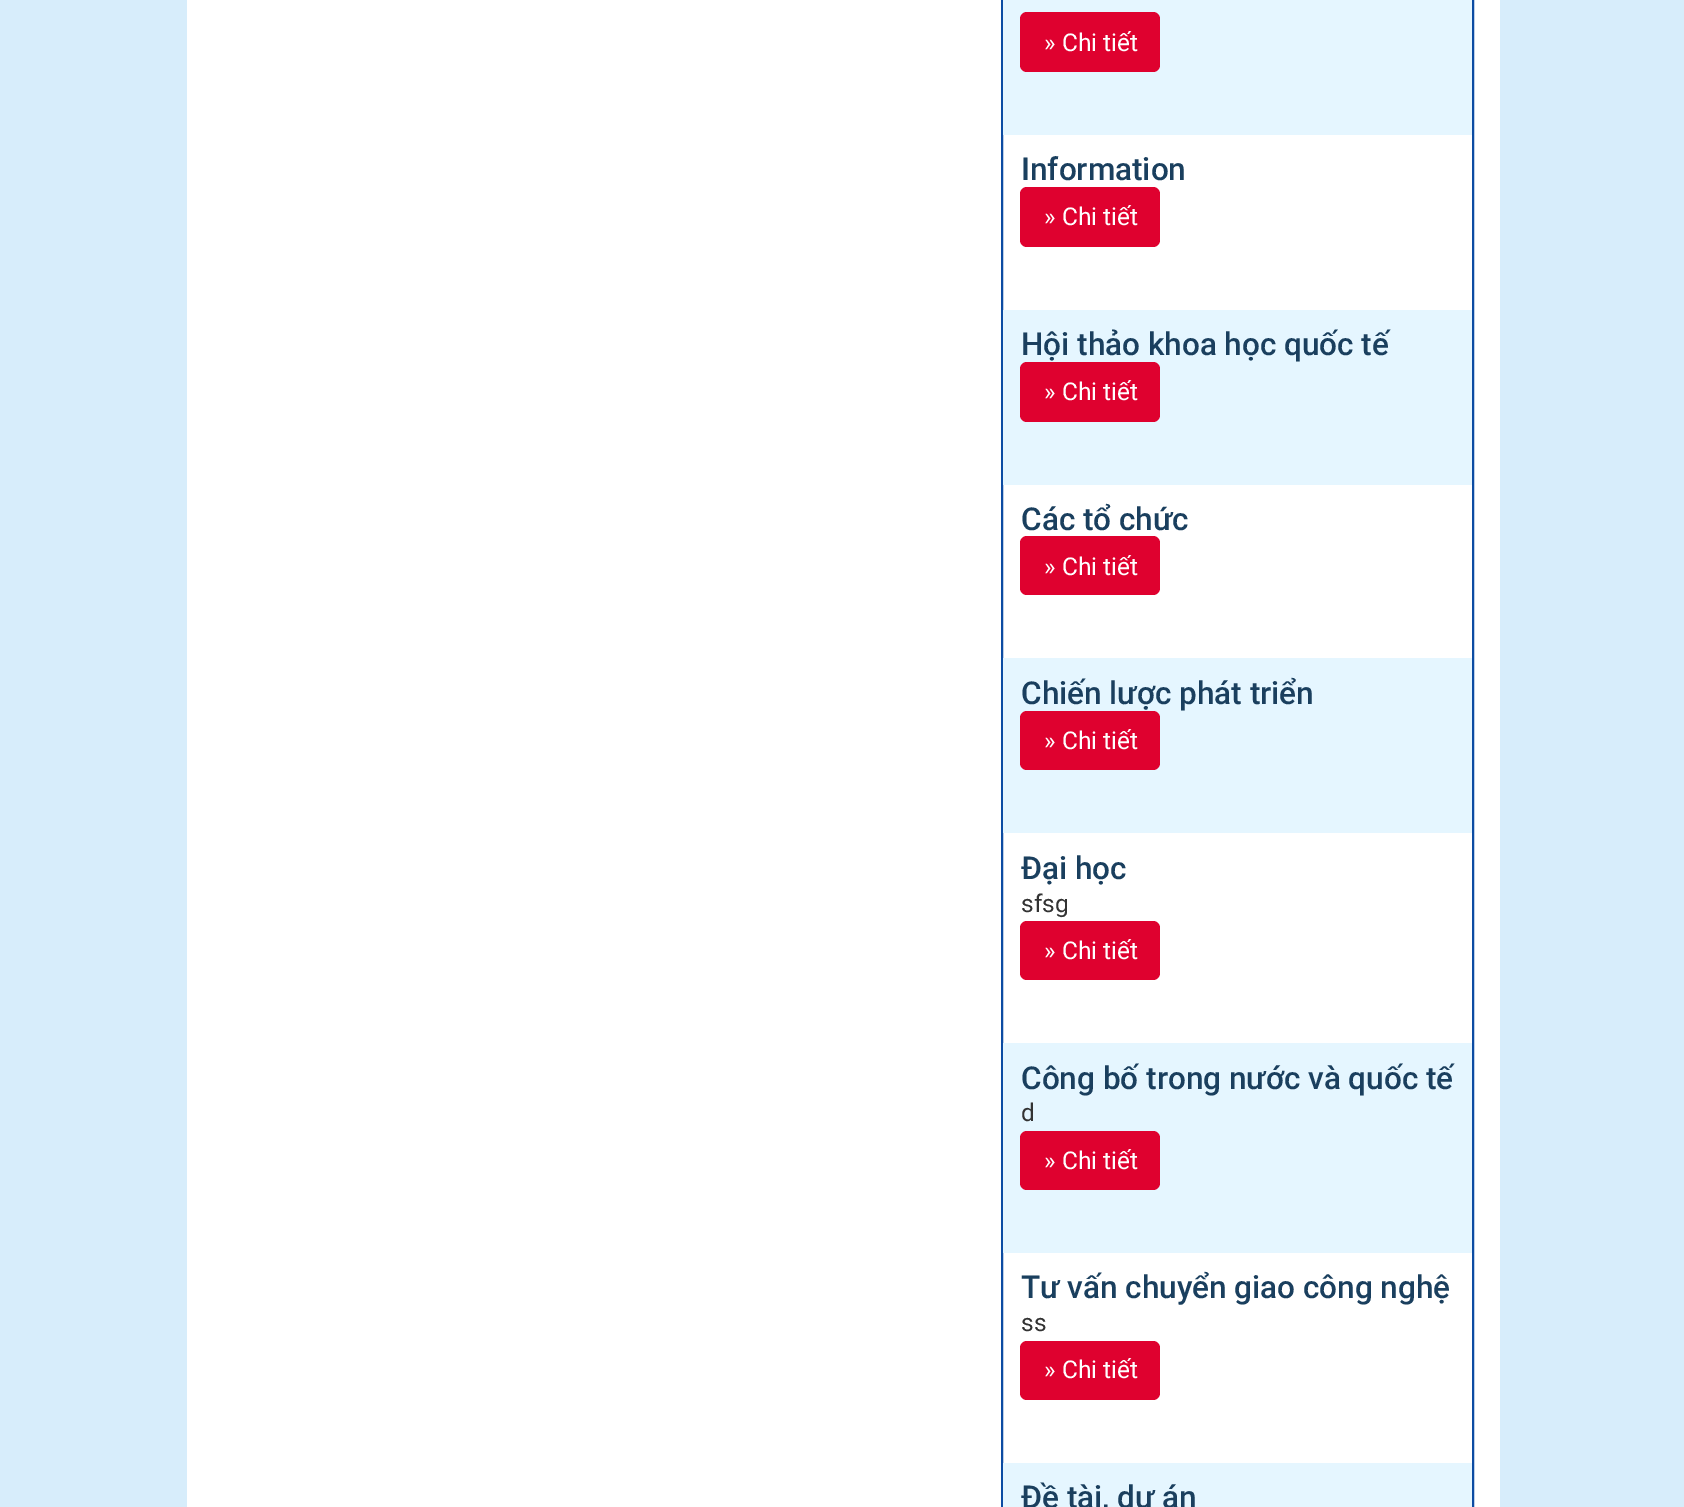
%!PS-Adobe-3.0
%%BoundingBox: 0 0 1684 1507
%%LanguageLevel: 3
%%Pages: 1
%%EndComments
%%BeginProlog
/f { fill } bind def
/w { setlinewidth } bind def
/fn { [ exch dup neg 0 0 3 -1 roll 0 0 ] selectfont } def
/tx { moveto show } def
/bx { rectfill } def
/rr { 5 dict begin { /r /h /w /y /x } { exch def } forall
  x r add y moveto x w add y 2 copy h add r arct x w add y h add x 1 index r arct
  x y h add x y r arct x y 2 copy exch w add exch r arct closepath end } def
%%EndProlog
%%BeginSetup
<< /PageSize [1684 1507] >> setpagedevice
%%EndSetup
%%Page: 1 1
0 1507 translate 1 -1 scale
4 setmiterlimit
0.843 0.929 0.984 setrgbcolor
0 0 1684 1507 bx
1 setgray
187 0 1313 1507 bx
0.047 0.298 0.639 setrgbcolor
2 w
1002 -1 471 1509 rectstroke
0.898 0.965 1 setrgbcolor
1003 0 469 135 bx
0.875 0.004 0.184 setrgbcolor
1020 12 140 60 7 rr f
/Roboto-Regular 24.5 fn
1 setgray
(» Chi tiết) 1044 51 tx
/Roboto-Medium 31.5 fn
0.102 0.247 0.369 setrgbcolor
(Information) 1021 180 tx
0.875 0.004 0.184 setrgbcolor
1020 187 140 60 7 rr f
/Roboto-Regular 24.5 fn
1 setgray
(» Chi tiết) 1044 225 tx
0.898 0.965 1 setrgbcolor
1003 310 469 175 bx
/Roboto-Medium 31.5 fn
0.102 0.247 0.369 setrgbcolor
(Hội thảo khoa học quốc tế) 1021 355 tx
0.875 0.004 0.184 setrgbcolor
1020 362 140 60 7 rr f
/Roboto-Regular 24.5 fn
1 setgray
(» Chi tiết) 1044 400 tx
/Roboto-Medium 31.5 fn
0.102 0.247 0.369 setrgbcolor
(Các tổ chức) 1021 530 tx
0.875 0.004 0.184 setrgbcolor
1020 536 140 59 7 rr f
/Roboto-Regular 24.5 fn
1 setgray
(» Chi tiết) 1044 575 tx
0.898 0.965 1 setrgbcolor
1003 658 469 175 bx
/Roboto-Medium 31.5 fn
0.102 0.247 0.369 setrgbcolor
(Chiến lược phát triển) 1021 704 tx
0.875 0.004 0.184 setrgbcolor
1020 711 140 59 7 rr f
/Roboto-Regular 24.5 fn
1 setgray
(» Chi tiết) 1044 749 tx
/Roboto-Medium 31.5 fn
0.102 0.247 0.369 setrgbcolor
(Đại học) 1021 879 tx
/Roboto-Regular 24.5 fn
0.2 setgray
(sfsg) 1021 912 tx
0.875 0.004 0.184 setrgbcolor
1020 921 140 59 7 rr f
1 setgray
(» Chi tiết) 1044 959 tx
0.898 0.965 1 setrgbcolor
1003 1043 469 210 bx
/Roboto-Medium 31.5 fn
0.102 0.247 0.369 setrgbcolor
(Công bố trong nước và quốc tế) 1021 1089 tx
/Roboto-Regular 24.5 fn
0.2 setgray
(d) 1021 1121 tx
0.875 0.004 0.184 setrgbcolor
1020 1131 140 59 7 rr f
1 setgray
(» Chi tiết) 1044 1169 tx
/Roboto-Medium 31.5 fn
0.102 0.247 0.369 setrgbcolor
(Tư vấn chuyển giao công nghệ) 1021 1298 tx
/Roboto-Regular 24.5 fn
0.2 setgray
(ss) 1021 1331 tx
0.875 0.004 0.184 setrgbcolor
1020 1341 140 59 7 rr f
1 setgray
(» Chi tiết) 1044 1378 tx
0.898 0.965 1 setrgbcolor
1003 1463 469 44 bx
/Roboto-Medium 31.5 fn
0.102 0.247 0.369 setrgbcolor
(Đề tài, dự án) 1021 1508 tx
showpage
%%EOF
